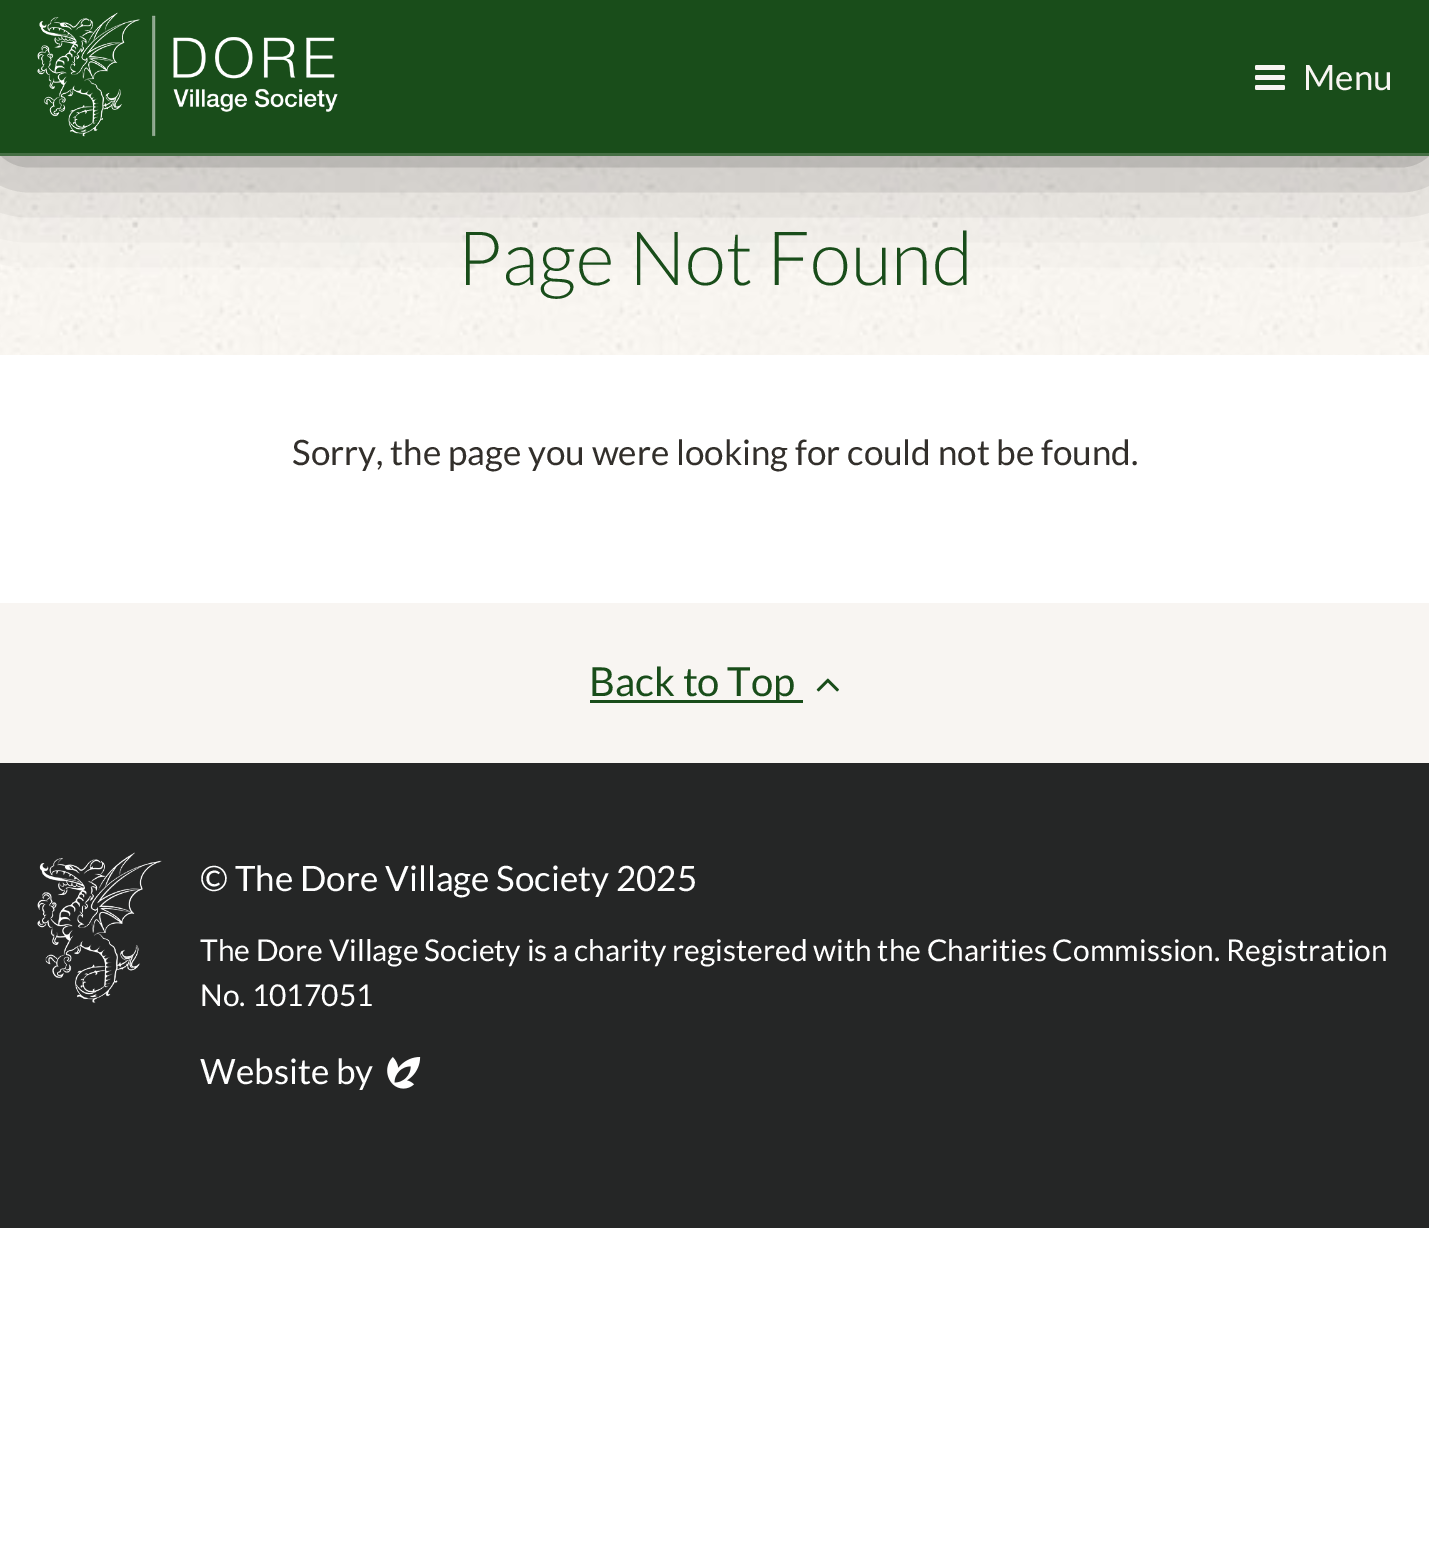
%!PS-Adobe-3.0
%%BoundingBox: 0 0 1429 1547
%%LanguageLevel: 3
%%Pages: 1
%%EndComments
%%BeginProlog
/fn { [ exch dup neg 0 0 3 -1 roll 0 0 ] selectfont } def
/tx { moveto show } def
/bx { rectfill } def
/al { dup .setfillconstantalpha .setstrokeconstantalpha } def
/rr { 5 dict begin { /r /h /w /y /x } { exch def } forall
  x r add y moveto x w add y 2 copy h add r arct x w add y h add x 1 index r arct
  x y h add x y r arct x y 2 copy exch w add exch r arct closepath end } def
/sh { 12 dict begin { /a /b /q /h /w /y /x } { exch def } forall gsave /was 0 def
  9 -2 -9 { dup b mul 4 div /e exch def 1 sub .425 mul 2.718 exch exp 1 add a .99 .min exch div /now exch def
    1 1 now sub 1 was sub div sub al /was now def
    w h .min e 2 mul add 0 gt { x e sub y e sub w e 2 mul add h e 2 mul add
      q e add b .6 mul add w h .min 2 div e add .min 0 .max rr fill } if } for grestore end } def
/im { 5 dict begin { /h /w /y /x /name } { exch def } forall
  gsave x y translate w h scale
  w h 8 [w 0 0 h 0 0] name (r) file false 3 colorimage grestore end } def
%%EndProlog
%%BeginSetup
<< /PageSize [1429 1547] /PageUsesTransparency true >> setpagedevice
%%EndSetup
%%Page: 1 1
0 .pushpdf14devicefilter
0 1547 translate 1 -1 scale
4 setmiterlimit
1 setgray
0 0 1429 1547 bx
(image2.raw) 0 156 1429 199 im
0 setgray
0 0 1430 155 0 50 0.5 sh
0.098 0.302 0.102 setrgbcolor
0 0 1429 153 bx
0.275 0.435 0.271 setrgbcolor
0 153 1429 3 bx
(image0.raw) 37 12 301 125 im
(image1.raw) 1255 65 30 25 im
/Lato-Regular 35 fn
0.973 0.961 0.949 setrgbcolor
(Menu) 1303 90 tx
/Lato-Light 75 fn
0.098 0.302 0.102 setrgbcolor
(Page Not Found) 457 285 tx
/Lato-Regular 35 fn
0.196 0.184 0.169 setrgbcolor
(Sorry, the page you were looking for could not be found.) 292 465 tx
0.973 0.961 0.949 setrgbcolor
0 603 1429 160 bx
0.098 0.302 0.102 setrgbcolor
590 700 213 3 bx
/Lato-Regular 40 fn
(Back to Top) 589 696 tx
(image3.raw) 816 678 23 14 im
0.145 0.149 0.149 setrgbcolor
0 763 1429 465 bx
(image4.raw) 37 852 125 151 im
/Lato-Regular 35 fn
1 setgray
(© The Dore Village Society 2025) 200 891 tx
/Lato-Regular 30 fn
(The Dore Village Society is a charity registered with the Charities Commission. Registration) 200 961 tx
(No. 1017051) 200 1006 tx
/Lato-Regular 35 fn
(Website by) 200 1084 tx
(image5.raw) 387 1057 34 32 im
.poppdf14devicefilter showpage
%%EOF
